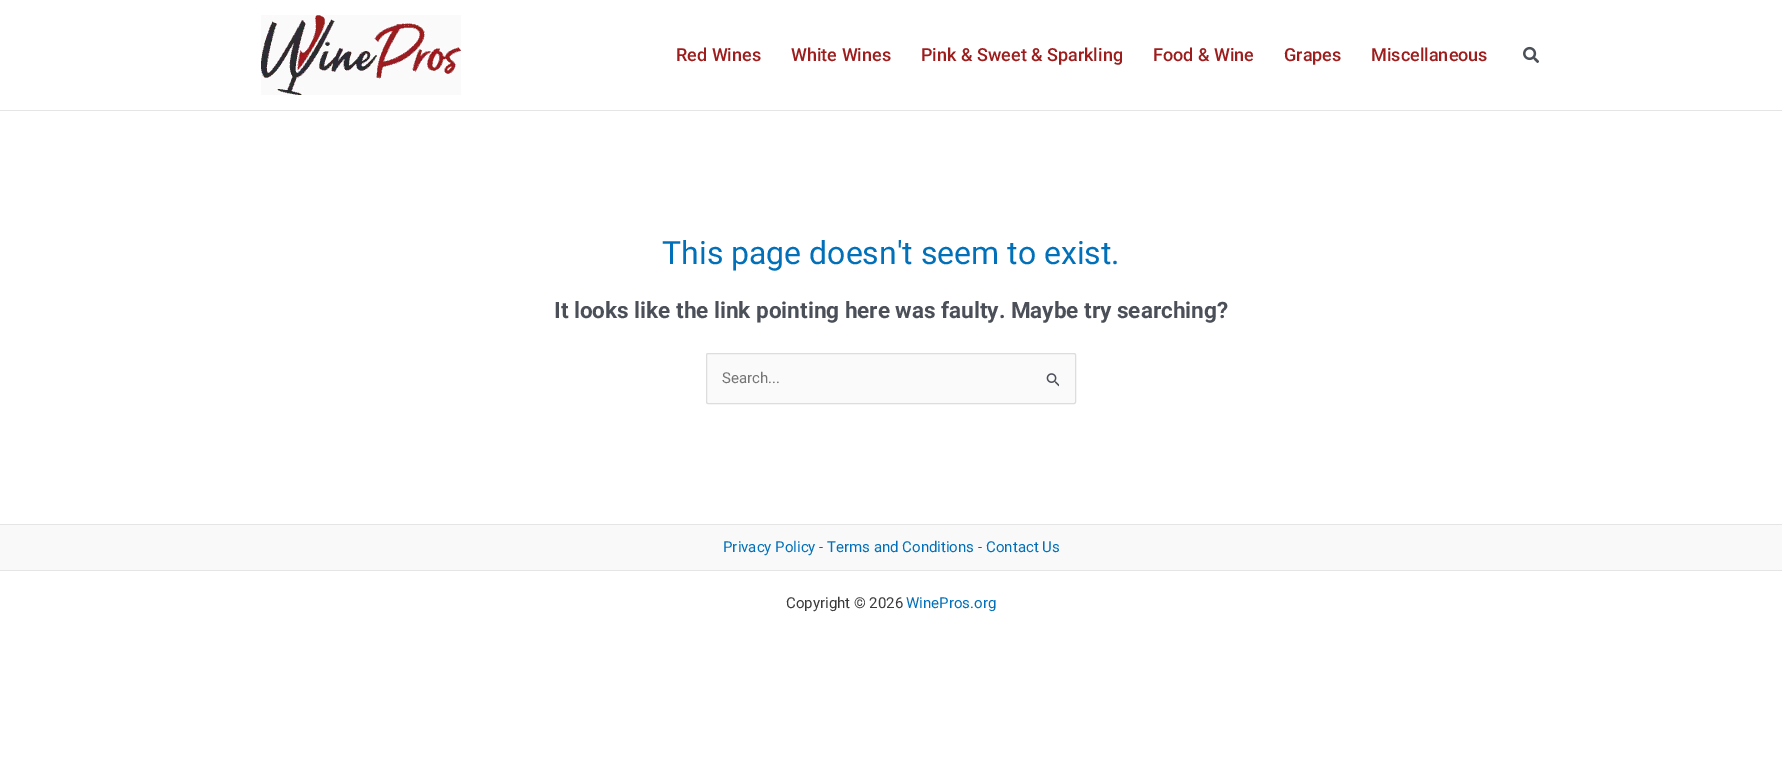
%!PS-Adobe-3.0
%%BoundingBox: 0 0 1782 773
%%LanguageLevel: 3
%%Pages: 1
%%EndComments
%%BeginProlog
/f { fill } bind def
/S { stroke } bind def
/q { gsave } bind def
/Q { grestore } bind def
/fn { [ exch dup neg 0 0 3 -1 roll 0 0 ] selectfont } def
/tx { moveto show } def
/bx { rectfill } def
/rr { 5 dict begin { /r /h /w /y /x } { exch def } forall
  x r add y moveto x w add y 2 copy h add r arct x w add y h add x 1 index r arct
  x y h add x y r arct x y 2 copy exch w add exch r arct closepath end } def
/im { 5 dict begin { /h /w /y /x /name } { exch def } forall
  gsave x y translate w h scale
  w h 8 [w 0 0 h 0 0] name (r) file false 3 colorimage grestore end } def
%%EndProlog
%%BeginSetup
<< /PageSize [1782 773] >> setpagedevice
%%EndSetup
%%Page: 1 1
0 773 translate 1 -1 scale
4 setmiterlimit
1 setgray
0 0 1782 773 bx
0.898 setgray
0 110 1782 1 bx
(image0.raw) 261 15 200 80 im
/Roboto-Medium 18 fn
0.616 0.114 0.114 setrgbcolor
(Red Wines) 676 61 tx
(White Wines) 791 61 tx
(Pink & Sweet & Sparkling) 921 61 tx
(Food & Wine) 1153 61 tx
(Grapes) 1284 61 tx
(Miscellaneous) 1371 61 tx
(image1.raw) 1523 46 16 17 im
/Roboto-Regular 32 fn
0.004 0.439 0.725 setrgbcolor
(This page doesn't seem to exist.) 662 264 tx
/Roboto-Bold 22.5 fn
0.294 0.31 0.345 setrgbcolor
(It looks like the link pointing here was faulty. Maybe try searching?) 554 318 tx
0.98 setgray
706.5 353.5 369 50 1.5 rr q f Q
0.867 setgray
S
/Roboto-Regular 15 fn
0.459 setgray
(Search...) 722 383 tx
(image2.raw) 1046 373 13 14 im
0.976 setgray
0 525 1782 45 bx
0.898 setgray
0 524 1782 1 bx
0.004 0.439 0.725 setrgbcolor
(Privacy Policy) 723 552 tx
0.294 0.31 0.345 setrgbcolor
(-) 819 552 tx
0.004 0.439 0.725 setrgbcolor
(Terms and Conditions) 827 552 tx
0.294 0.31 0.345 setrgbcolor
(-) 978 552 tx
0.004 0.439 0.725 setrgbcolor
(Contact Us) 986 552 tx
0.898 setgray
0 570 1782 1 bx
0.227 setgray
(Copyright © 2026) 786 608 tx
0.004 0.439 0.725 setrgbcolor
(WinePros.org) 906 608 tx
showpage
%%EOF
